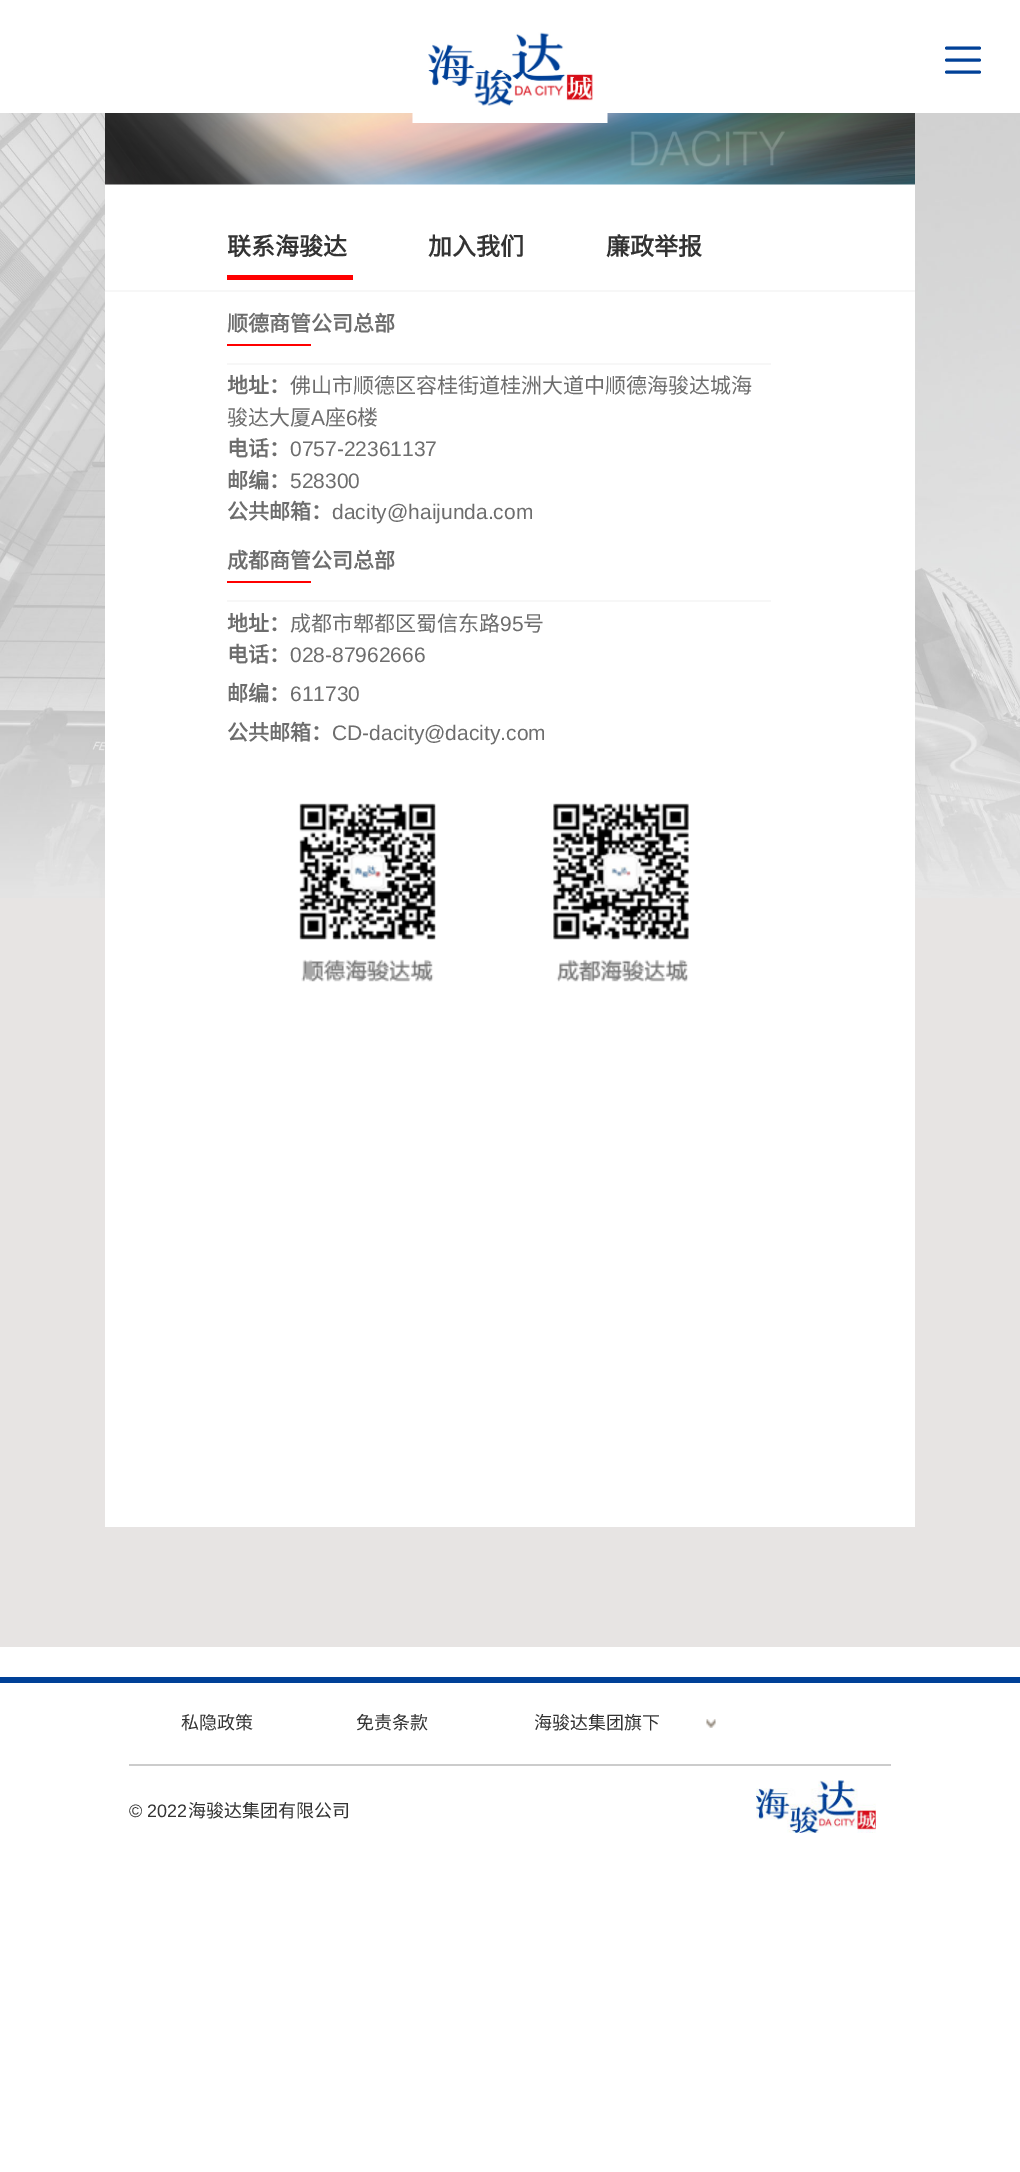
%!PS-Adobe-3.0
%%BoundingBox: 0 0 1020 2172
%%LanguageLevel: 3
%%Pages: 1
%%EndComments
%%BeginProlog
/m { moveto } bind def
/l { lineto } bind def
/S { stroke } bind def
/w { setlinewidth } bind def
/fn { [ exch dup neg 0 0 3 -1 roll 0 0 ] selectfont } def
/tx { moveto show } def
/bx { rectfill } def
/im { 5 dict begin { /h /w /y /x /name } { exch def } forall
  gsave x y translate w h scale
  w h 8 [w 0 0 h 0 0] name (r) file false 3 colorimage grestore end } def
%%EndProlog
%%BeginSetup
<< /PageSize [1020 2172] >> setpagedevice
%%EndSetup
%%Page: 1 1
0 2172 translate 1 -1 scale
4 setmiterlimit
1 setgray
0 0 1020 2172 bx
(image1.raw) 0 113 1020 785 im
0.906 0.894 0.89 setrgbcolor
0 898 1020 749 bx
1 setgray
105 184 810 1343 bx
(image2.raw) 105 113 810 72 im
(image0.raw) 412 32 196 91 im
0 0.251 0.592 setrgbcolor
3 w
1 setlinecap
946.5 48 m 979.5 48 l 946.5 60 m 979.5 60 l 946.5 72 m 979.5 72 l S
/NotoSansCJKSC-Bold 24 fn
0.2 setgray
(联系海骏达) 227 255 tx
1 0 0 setrgbcolor
227 275 126 5 bx
0.2 setgray
(加入我们) 428 255 tx
(廉政举报) 606 255 tx
0.969 setgray
105 290 810 2 bx
227 363 544 2 bx
/NotoSansCJKSC-Bold 21 fn
0.427 setgray
(顺德商管公司总部) 227 331 tx
1 0 0 setrgbcolor
227 344 84 2 bx
0.427 setgray
(地址：) 227 393 tx
/NotoSansCJKSC-Regular 21 fn
(佛山市顺德区容桂街道桂洲大道中顺德海骏达城海) 290 393 tx
(骏达大厦) 227 425 tx
/LiberationSans-Regular 21 fn
(A) 311 425 tx
/NotoSansCJKSC-Regular 21 fn
(座) 325 425 tx
/LiberationSans-Regular 21 fn
(6) 346 425 tx
/NotoSansCJKSC-Regular 21 fn
(楼) 357 425 tx
/NotoSansCJKSC-Bold 21 fn
(电话：) 227 456 tx
/LiberationSans-Regular 21 fn
(0757-22361137) 290 456 tx
/NotoSansCJKSC-Bold 21 fn
(邮编：) 227 488 tx
/LiberationSans-Regular 21 fn
(528300) 290 488 tx
/NotoSansCJKSC-Bold 21 fn
(公共邮箱：) 227 519 tx
/LiberationSans-Regular 21 fn
(dacity@haijunda.com) 332 519 tx
0.969 setgray
227 600 544 2 bx
/NotoSansCJKSC-Bold 21 fn
0.427 setgray
(成都商管公司总部) 227 568 tx
1 0 0 setrgbcolor
227 581 84 2 bx
0.427 setgray
(地址：) 227 631 tx
/NotoSansCJKSC-Regular 21 fn
(成都市郫都区蜀信东路) 290 631 tx
/LiberationSans-Regular 21 fn
(95) 500 631 tx
/NotoSansCJKSC-Regular 21 fn
(号) 523 631 tx
/NotoSansCJKSC-Bold 21 fn
(电话：) 227 662 tx
/LiberationSans-Regular 21 fn
(028-87962666) 290 662 tx
/NotoSansCJKSC-Bold 21 fn
(邮编：) 227 701 tx
/LiberationSans-Regular 21 fn
(611730) 290 701 tx
/NotoSansCJKSC-Bold 21 fn
(公共邮箱：) 227 740 tx
/LiberationSans-Regular 21 fn
(CD-dacity@dacity.com) 332 740 tx
(image3.raw) 299 803 390 179 im
0 0.251 0.592 setrgbcolor
0 1677 1020 6 bx
0.8 setgray
129 1764 762 2 bx
/NotoSansCJKSC-Regular 18 fn
0.2 setgray
(私隐政策) 181 1729 tx
(免责条款) 356 1729 tx
(image4.raw) 706 1719 10 9 im
(海骏达集团旗下) 534 1729 tx
/LiberationSans-Regular 18 fn
(© 2022) 129 1817 tx
/NotoSansCJKSC-Regular 18 fn
(海骏达集团有限公司) 188 1817 tx
(image5.raw) 756 1780 120 53 im
showpage
%%EOF
